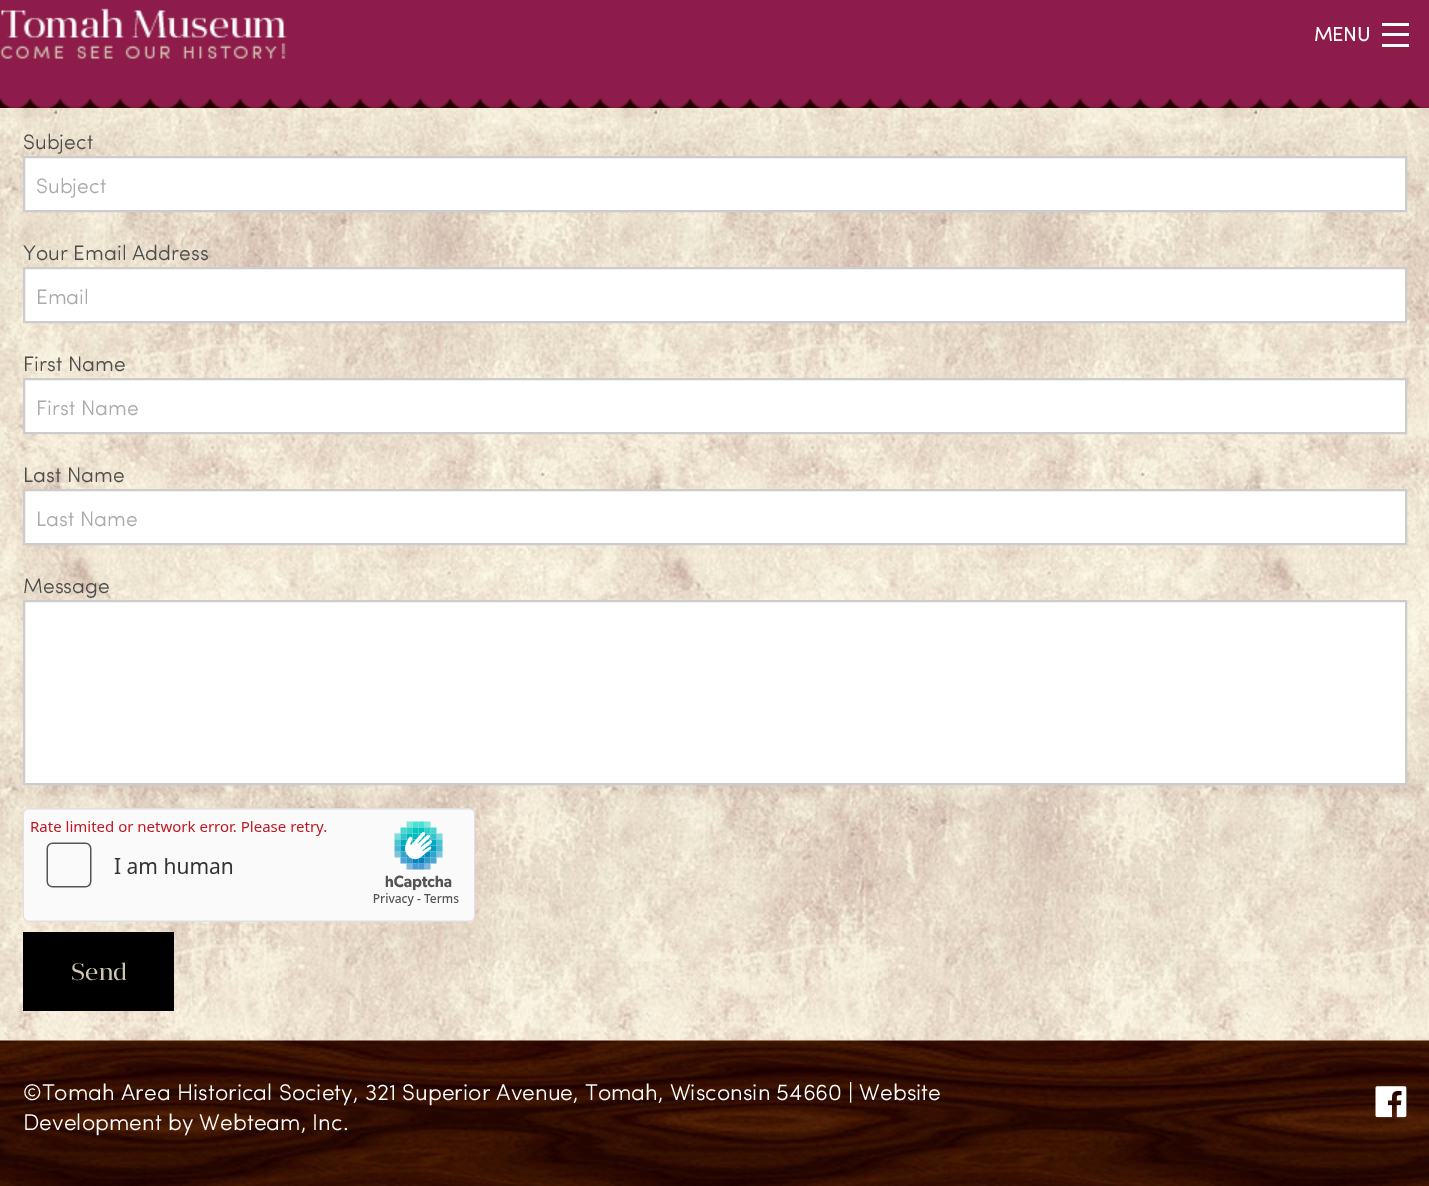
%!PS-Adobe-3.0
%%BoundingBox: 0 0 1429 1186
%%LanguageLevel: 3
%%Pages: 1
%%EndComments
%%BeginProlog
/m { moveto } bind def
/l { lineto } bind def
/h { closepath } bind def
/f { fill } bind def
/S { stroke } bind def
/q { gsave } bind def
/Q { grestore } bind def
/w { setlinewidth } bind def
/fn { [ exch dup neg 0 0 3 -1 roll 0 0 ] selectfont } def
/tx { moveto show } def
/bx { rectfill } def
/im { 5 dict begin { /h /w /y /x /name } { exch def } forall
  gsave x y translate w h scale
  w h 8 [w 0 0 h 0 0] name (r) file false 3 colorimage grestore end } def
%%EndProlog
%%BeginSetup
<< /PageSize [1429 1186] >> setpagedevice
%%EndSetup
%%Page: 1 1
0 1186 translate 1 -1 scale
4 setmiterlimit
1 setgray
0 0 1429 1186 bx
(image0.raw) 0 108 1429 933 im
0.553 0.11 0.29 setrgbcolor
0 0 1429 97 bx
(image1.raw) 0 97 1429 11 im
(image2.raw) 0 8 287 51 im
/Sofia-Bold 19.5 fn
1 setgray
(MENU) 1314 41 tx
1382 44 27 3 bx
1382 33 27 3 bx
1382 23 27 3 bx
/Sofia-Regular 21 fn
0.302 setgray
(Subject) 23 149 tx
1 setgray
24 157 m 1406 157 l 1406 211 l 24 211 l h q f Q
0.8 setgray
2 w
S
0.667 setgray
(Subject) 36 193 tx
0.302 setgray
(Your Email Address) 23 260 tx
1 setgray
24 268 m 1406 268 l 1406 322 l 24 322 l h q f Q
0.8 setgray
S
0.667 setgray
(Email) 36 304 tx
0.302 setgray
(First Name) 23 371 tx
1 setgray
24 379 m 1406 379 l 1406 433 l 24 433 l h q f Q
0.8 setgray
S
0.667 setgray
(First Name) 36 415 tx
0.302 setgray
(Last Name) 23 482 tx
1 setgray
24 490 m 1406 490 l 1406 544 l 24 544 l h q f Q
0.8 setgray
S
0.667 setgray
(Last Name) 36 526 tx
0.302 setgray
(Message) 23 593 tx
1 setgray
24 601 m 1406 601 l 1406 784 l 24 784 l h q f Q
0.8 setgray
S
(image3.raw) 23 808 453 114 im
0 setgray
23 932 151 79 bx
/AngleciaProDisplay-Regular 24 fn
0.812 0.769 0.682 setrgbcolor
(Send) 71 980 tx
(image4.raw) 0 1040 1429 146 im
/Sofia-Regular 22.8 fn
1 setgray
(©Tomah Area Historical Society, 321 Superior Avenue, Tomah, Wisconsin 54660 | Website) 23 1100 tx
(Development by Webteam, Inc.) 23 1130 tx
(image5.raw) 1375 1086 32 32 im
showpage
%%EOF
